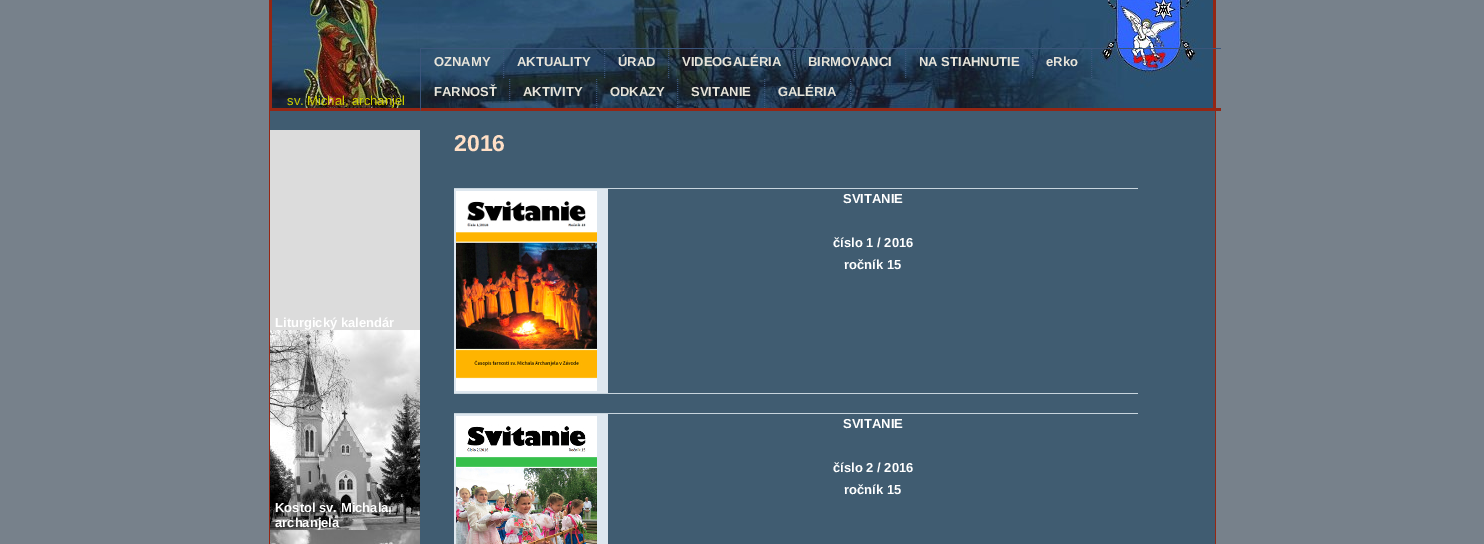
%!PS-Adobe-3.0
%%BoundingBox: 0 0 1484 544
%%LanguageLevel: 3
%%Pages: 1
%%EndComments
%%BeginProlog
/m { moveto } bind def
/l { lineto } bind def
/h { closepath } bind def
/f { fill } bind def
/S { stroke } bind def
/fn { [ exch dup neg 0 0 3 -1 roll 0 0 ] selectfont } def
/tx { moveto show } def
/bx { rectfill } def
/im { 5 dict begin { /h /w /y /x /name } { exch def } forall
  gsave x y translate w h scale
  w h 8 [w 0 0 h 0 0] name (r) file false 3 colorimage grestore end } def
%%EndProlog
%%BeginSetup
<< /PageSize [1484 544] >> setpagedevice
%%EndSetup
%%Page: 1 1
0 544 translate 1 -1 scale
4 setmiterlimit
0.467 0.506 0.545 setrgbcolor
0 0 1484 544 bx
0.251 0.361 0.443 setrgbcolor
270 109 945 435 bx
0.584 0.149 0.075 setrgbcolor
1215 0 1 544 bx
269 0 1 544 bx
(image0.raw) 420 0 793 109 im
1213 0 2 110 bx
0.235 0.333 0.482 setrgbcolor
420 48 801 1 bx
0.584 0.149 0.075 setrgbcolor
1221 111 m 420 111 l 421 108 l 1221 108 l h f
0.235 0.333 0.482 setrgbcolor
420 111 m 420 48 l 421 49 l 421 108 l h f
[1 1] 0 setdash
503.5 49 m 503.5 79 l S
/LiberationSans-Bold 13 fn
0.906 0.894 0.855 setrgbcolor
(OZNAMY) 434 66 tx
0.235 0.333 0.482 setrgbcolor
604.5 49 m 604.5 79 l S
0.906 0.894 0.855 setrgbcolor
(AKTUALITY) 517 66 tx
0.235 0.333 0.482 setrgbcolor
668.5 49 m 668.5 79 l S
0.906 0.894 0.855 setrgbcolor
(ÚRAD) 618 66 tx
0.235 0.333 0.482 setrgbcolor
794.5 49 m 794.5 79 l S
0.906 0.894 0.855 setrgbcolor
(VIDEOGALÉRIA) 682 66 tx
0.235 0.333 0.482 setrgbcolor
905.5 49 m 905.5 79 l S
0.906 0.894 0.855 setrgbcolor
(BIRMOVANCI) 808 66 tx
0.235 0.333 0.482 setrgbcolor
1032.5 49 m 1032.5 79 l S
0.906 0.894 0.855 setrgbcolor
(NA STIAHNUTIE) 919 66 tx
0.235 0.333 0.482 setrgbcolor
1091.5 49 m 1091.5 79 l S
0.906 0.894 0.855 setrgbcolor
(eRko) 1046 66 tx
0.235 0.333 0.482 setrgbcolor
509.5 79 m 509.5 108 l S
0.906 0.894 0.855 setrgbcolor
(FARNOSŤ) 434 96 tx
0.235 0.333 0.482 setrgbcolor
596.5 79 m 596.5 108 l S
0.906 0.894 0.855 setrgbcolor
(AKTIVITY) 523 96 tx
0.235 0.333 0.482 setrgbcolor
677.5 79 m 677.5 108 l S
0.906 0.894 0.855 setrgbcolor
(ODKAZY) 610 96 tx
0.235 0.333 0.482 setrgbcolor
764.5 79 m 764.5 108 l S
0.906 0.894 0.855 setrgbcolor
(SVITANIE) 691 96 tx
0.235 0.333 0.482 setrgbcolor
850.5 79 m 850.5 108 l S
0.906 0.894 0.855 setrgbcolor
(GALÉRIA) 778 96 tx
(image1.raw) 272 0 148 108 im
0.584 0.149 0.075 setrgbcolor
270 108 150 3 bx
270 0 2 111 bx
/LiberationSans-Regular 13 fn
0.8 0.8 0 setrgbcolor
(sv. Michal, archanjel) 287 105 tx
0.863 setgray
270 130 150 200 bx
/LiberationSans-Bold 13 fn
1 setgray
(Liturgický kalendár) 275 327 tx
(image2.raw) 270 330 150 200 im
(Kostol sv. Michala,) 275 512 tx
(archanjela) 275 527 tx
(image3.raw) 270 530 150 14 im
/LiberationSans-Bold 23 fn
1 0.875 0.776 setrgbcolor
(2016) 454 151 tx
0.784 0.835 0.871 setrgbcolor
454 188 684 1 bx
0.871 0.906 0.937 setrgbcolor
454 189 154 204 bx
0.784 0.835 0.871 setrgbcolor
454 393 684 1 bx
(image4.raw) 456 191 141 200 im
/LiberationSans-Bold 13 fn
1 setgray
(SVITANIE) 843 203 tx
(číslo 1 / 2016) 833 247 tx
(ročník 15) 844 269 tx
0.784 0.835 0.871 setrgbcolor
454 413 684 1 bx
0.871 0.906 0.937 setrgbcolor
454 414 154 130 bx
(image5.raw) 456 416 141 128 im
1 setgray
(SVITANIE) 843 428 tx
(číslo 2 / 2016) 833 472 tx
(ročník 15) 844 494 tx
showpage
%%EOF
